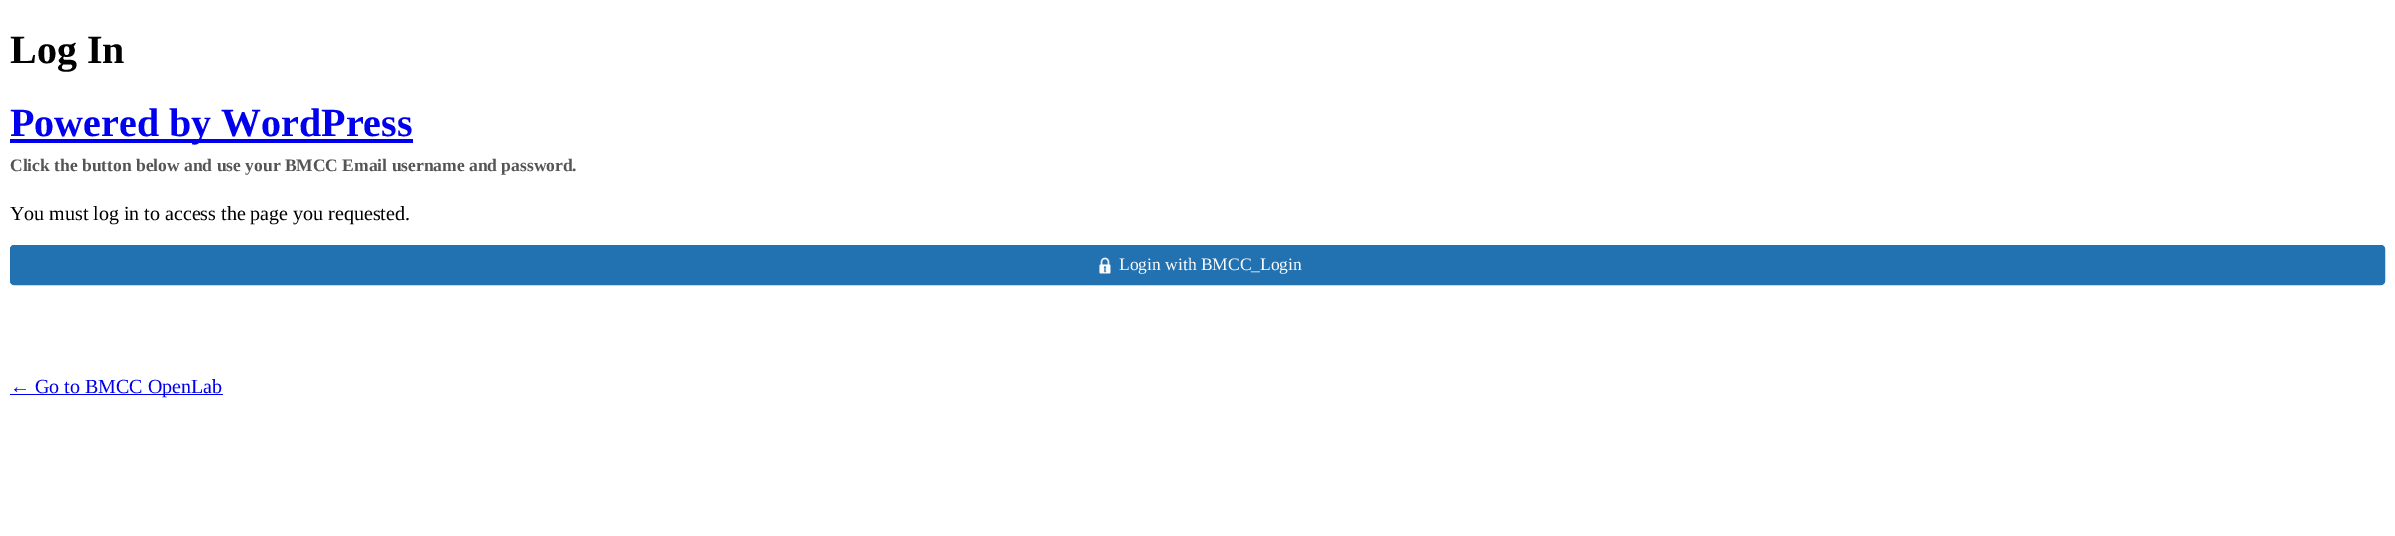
%!PS-Adobe-3.0
%%BoundingBox: 0 0 2395 536
%%LanguageLevel: 3
%%Pages: 1
%%EndComments
%%BeginProlog
/f { fill } bind def
/S { stroke } bind def
/q { gsave } bind def
/Q { grestore } bind def
/fn { [ exch dup neg 0 0 3 -1 roll 0 0 ] selectfont } def
/tx { moveto show } def
/bx { rectfill } def
/rr { 5 dict begin { /r /h /w /y /x } { exch def } forall
  x r add y moveto x w add y 2 copy h add r arct x w add y h add x 1 index r arct
  x y h add x y r arct x y 2 copy exch w add exch r arct closepath end } def
/im { 5 dict begin { /h /w /y /x /name } { exch def } forall
  gsave x y translate w h scale
  w h 8 [w 0 0 h 0 0] name (r) file false 3 colorimage grestore end } def
%%EndProlog
%%BeginSetup
<< /PageSize [2395 536] >> setpagedevice
%%EndSetup
%%Page: 1 1
0 536 translate 1 -1 scale
4 setmiterlimit
1 setgray
0 0 2395 536 bx
/LiberationSerif-Bold 40 fn
0 setgray
(Log In) 10 63 tx
0 0 0.933 setrgbcolor
10 139 403 4 bx
(Powered by WordPress) 10 136 tx
/LiberationSerif-Bold 17.5 fn
0.333 setgray
(Click the button below and use your BMCC Email username and password.) 10 171 tx
/LiberationSerif-Regular 20 fn
0 setgray
(You must log in to access the page you requested.) 10 220 tx
0.133 0.443 0.694 setrgbcolor
10.5 245.5 2374 39 3.5 rr q f Q
S
(image0.raw) 1099 257 12 17 im
/LiberationSerif-Regular 17.5 fn
1 setgray
(Login with BMCC_Login) 1119 270 tx
0 0 0.933 setrgbcolor
10 394 213 1 bx
/LiberationSerif-Regular 20 fn
(← Go to BMCC OpenLab) 10 393 tx
showpage
%%EOF
